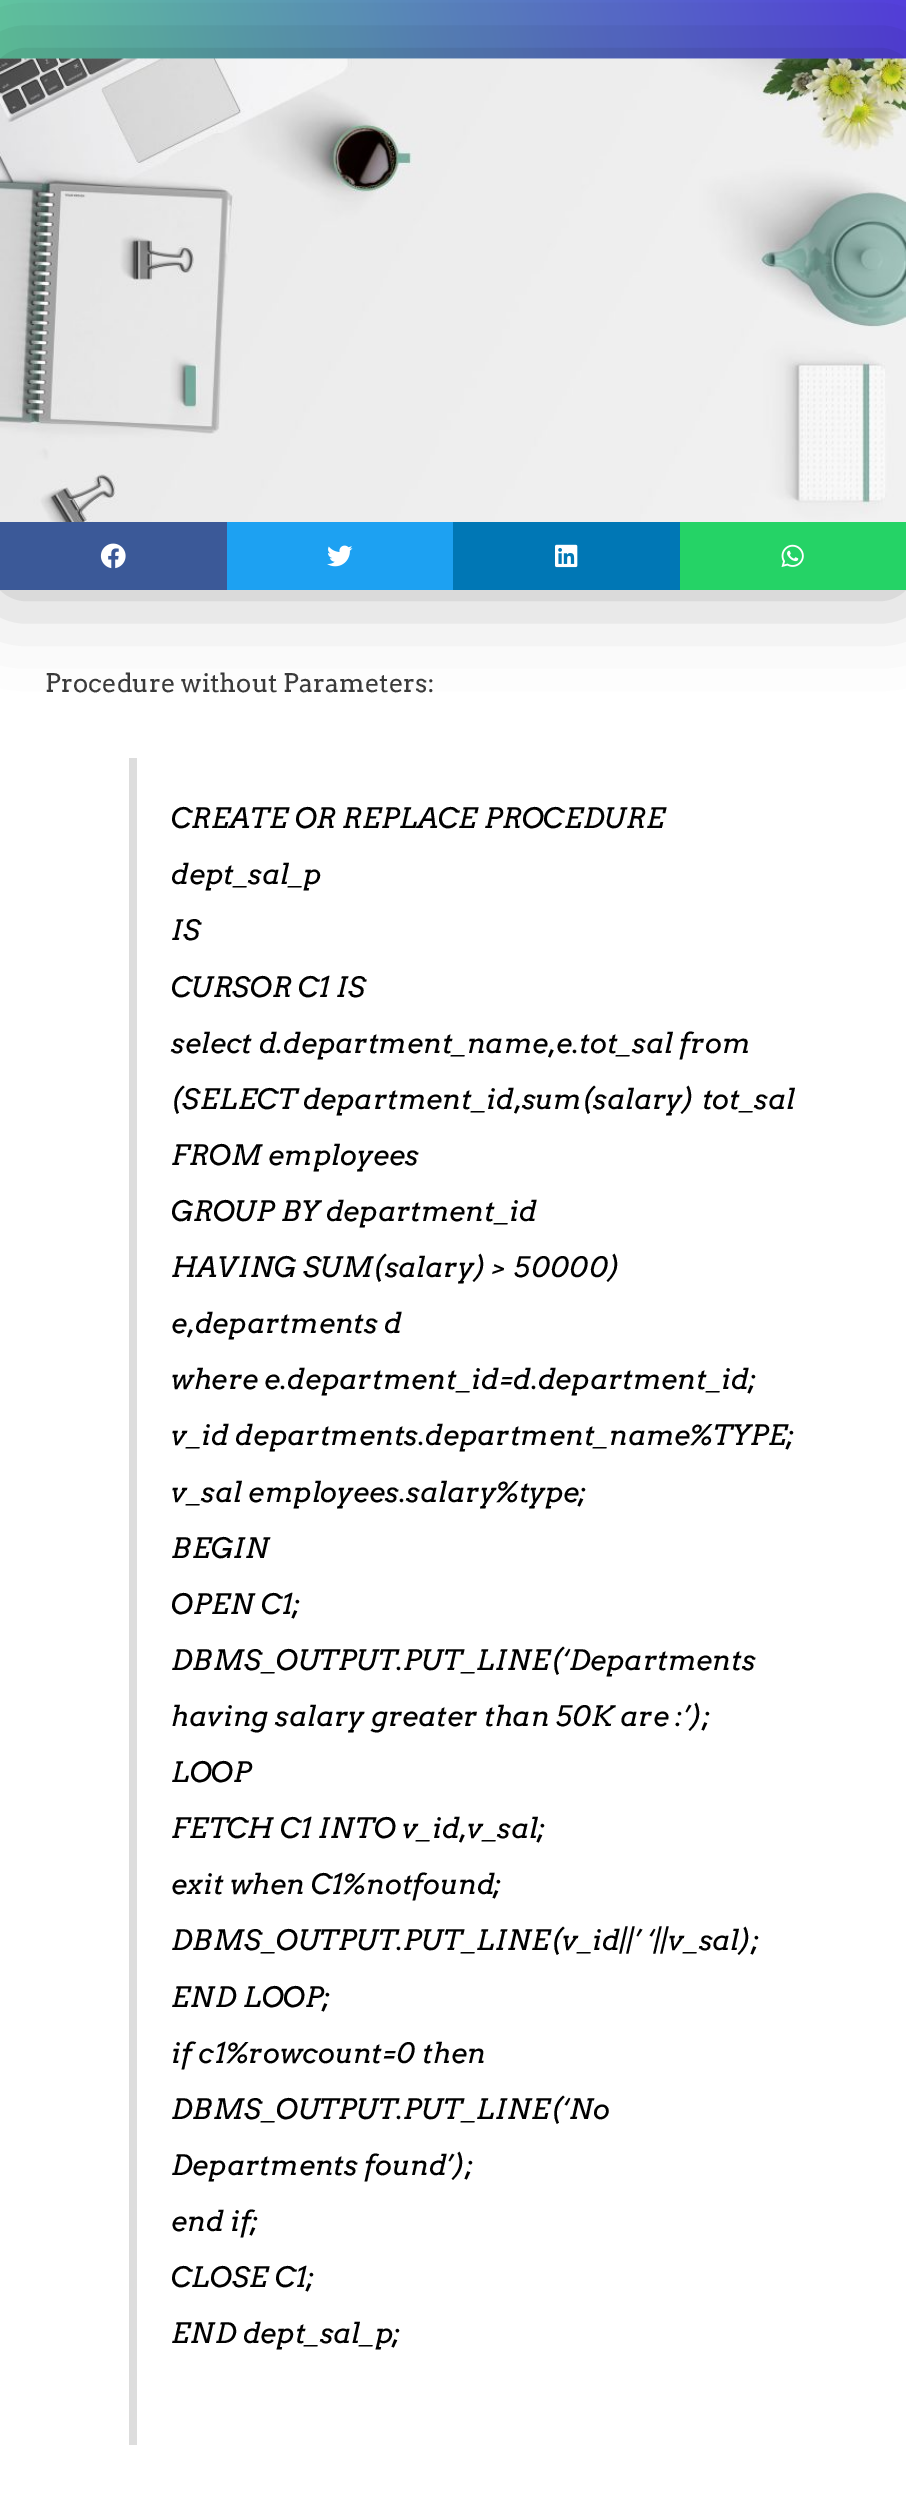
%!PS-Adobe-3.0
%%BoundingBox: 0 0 906 2518
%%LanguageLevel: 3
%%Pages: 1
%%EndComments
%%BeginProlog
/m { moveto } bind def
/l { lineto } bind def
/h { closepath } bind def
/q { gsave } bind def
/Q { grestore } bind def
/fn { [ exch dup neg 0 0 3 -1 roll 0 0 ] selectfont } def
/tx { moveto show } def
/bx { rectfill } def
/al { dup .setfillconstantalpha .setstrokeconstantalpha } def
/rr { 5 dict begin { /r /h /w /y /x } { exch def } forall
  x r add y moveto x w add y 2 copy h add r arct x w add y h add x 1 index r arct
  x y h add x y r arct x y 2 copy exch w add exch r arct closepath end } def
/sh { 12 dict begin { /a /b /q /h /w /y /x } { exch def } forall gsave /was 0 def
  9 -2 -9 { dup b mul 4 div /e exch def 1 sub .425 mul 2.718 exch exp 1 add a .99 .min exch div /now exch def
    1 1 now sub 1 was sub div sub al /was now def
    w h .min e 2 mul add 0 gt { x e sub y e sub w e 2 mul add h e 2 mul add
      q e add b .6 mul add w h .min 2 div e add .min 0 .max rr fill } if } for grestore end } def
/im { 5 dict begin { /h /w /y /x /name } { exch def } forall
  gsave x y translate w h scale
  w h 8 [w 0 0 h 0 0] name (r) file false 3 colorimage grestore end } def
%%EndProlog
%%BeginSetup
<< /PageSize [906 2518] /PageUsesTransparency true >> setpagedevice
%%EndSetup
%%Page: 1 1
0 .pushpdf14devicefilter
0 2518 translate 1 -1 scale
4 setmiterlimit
1 setgray
0 0 906 2518 bx
q 0 0 m 906 0 l 906 59 l 0 59 l h clip newpath
<< /ShadingType 2 /ColorSpace /DeviceRGB /Coords [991 -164 -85 26] /Extend [true true] /Function << /FunctionType 2 /Domain [0 1] /C0 [0.329 0.188 0.914] /C1 [0.392 0.839 0.616] /N 1 >> >> shfill Q
0 setgray
0 59 906 531 0 45 0.28 sh
(image0.raw) 0 58 906 464 im
0.231 0.349 0.596 setrgbcolor
0 522 227 68 bx
(image1.raw) 100 543 26 26 im
0.114 0.631 0.949 setrgbcolor
227 522 226 68 bx
(image2.raw) 327 545 26 22 im
0 0.467 0.71 setrgbcolor
453 522 227 68 bx
(image3.raw) 555 544 23 24 im
0.145 0.827 0.4 setrgbcolor
680 522 226 68 bx
(image4.raw) 781 544 23 23 im
/Arvo-Regular 25.5 fn
0.227 setgray
(Procedure without Parameters:) 45 692 tx
0.867 setgray
129 758 8 1687 bx
/Arvo-Italic 28.05 fn
0 setgray
(CREATE OR REPLACE PROCEDURE) 171 828 tx
(dept_sal_p) 171 884 tx
(IS) 171 940 tx
(CURSOR C1 IS) 171 997 tx
(select d.department_name,e.tot_sal from) 171 1053 tx
(\(SELECT department_id,sum\(salary\) tot_sal) 171 1109 tx
(FROM employees) 171 1165 tx
(GROUP BY department_id) 171 1221 tx
(HAVING SUM\(salary\) > 50000\)) 171 1277 tx
(e,departments d) 171 1333 tx
(where e.department_id=d.department_id;) 171 1389 tx
(v_id departments.department_name%TYPE;) 171 1445 tx
(v_sal employees.salary%type;) 171 1502 tx
(BEGIN) 171 1558 tx
(OPEN C1;) 171 1614 tx
(DBMS_OUTPUT.PUT_LINE\(‘Departments) 171 1670 tx
(having salary greater than 50K are :’\);) 171 1726 tx
(LOOP) 171 1782 tx
(FETCH C1 INTO v_id,v_sal;) 171 1838 tx
(exit when C1%notfound;) 171 1894 tx
(DBMS_OUTPUT.PUT_LINE\(v_id||’ ‘||v_sal\);) 171 1950 tx
(END LOOP;) 171 2007 tx
(if c1%rowcount=0 then) 171 2063 tx
(DBMS_OUTPUT.PUT_LINE\(‘No) 171 2119 tx
(Departments found’\);) 171 2175 tx
(end if;) 171 2231 tx
(CLOSE C1;) 171 2287 tx
(END dept_sal_p;) 171 2343 tx
.poppdf14devicefilter showpage
%%EOF
